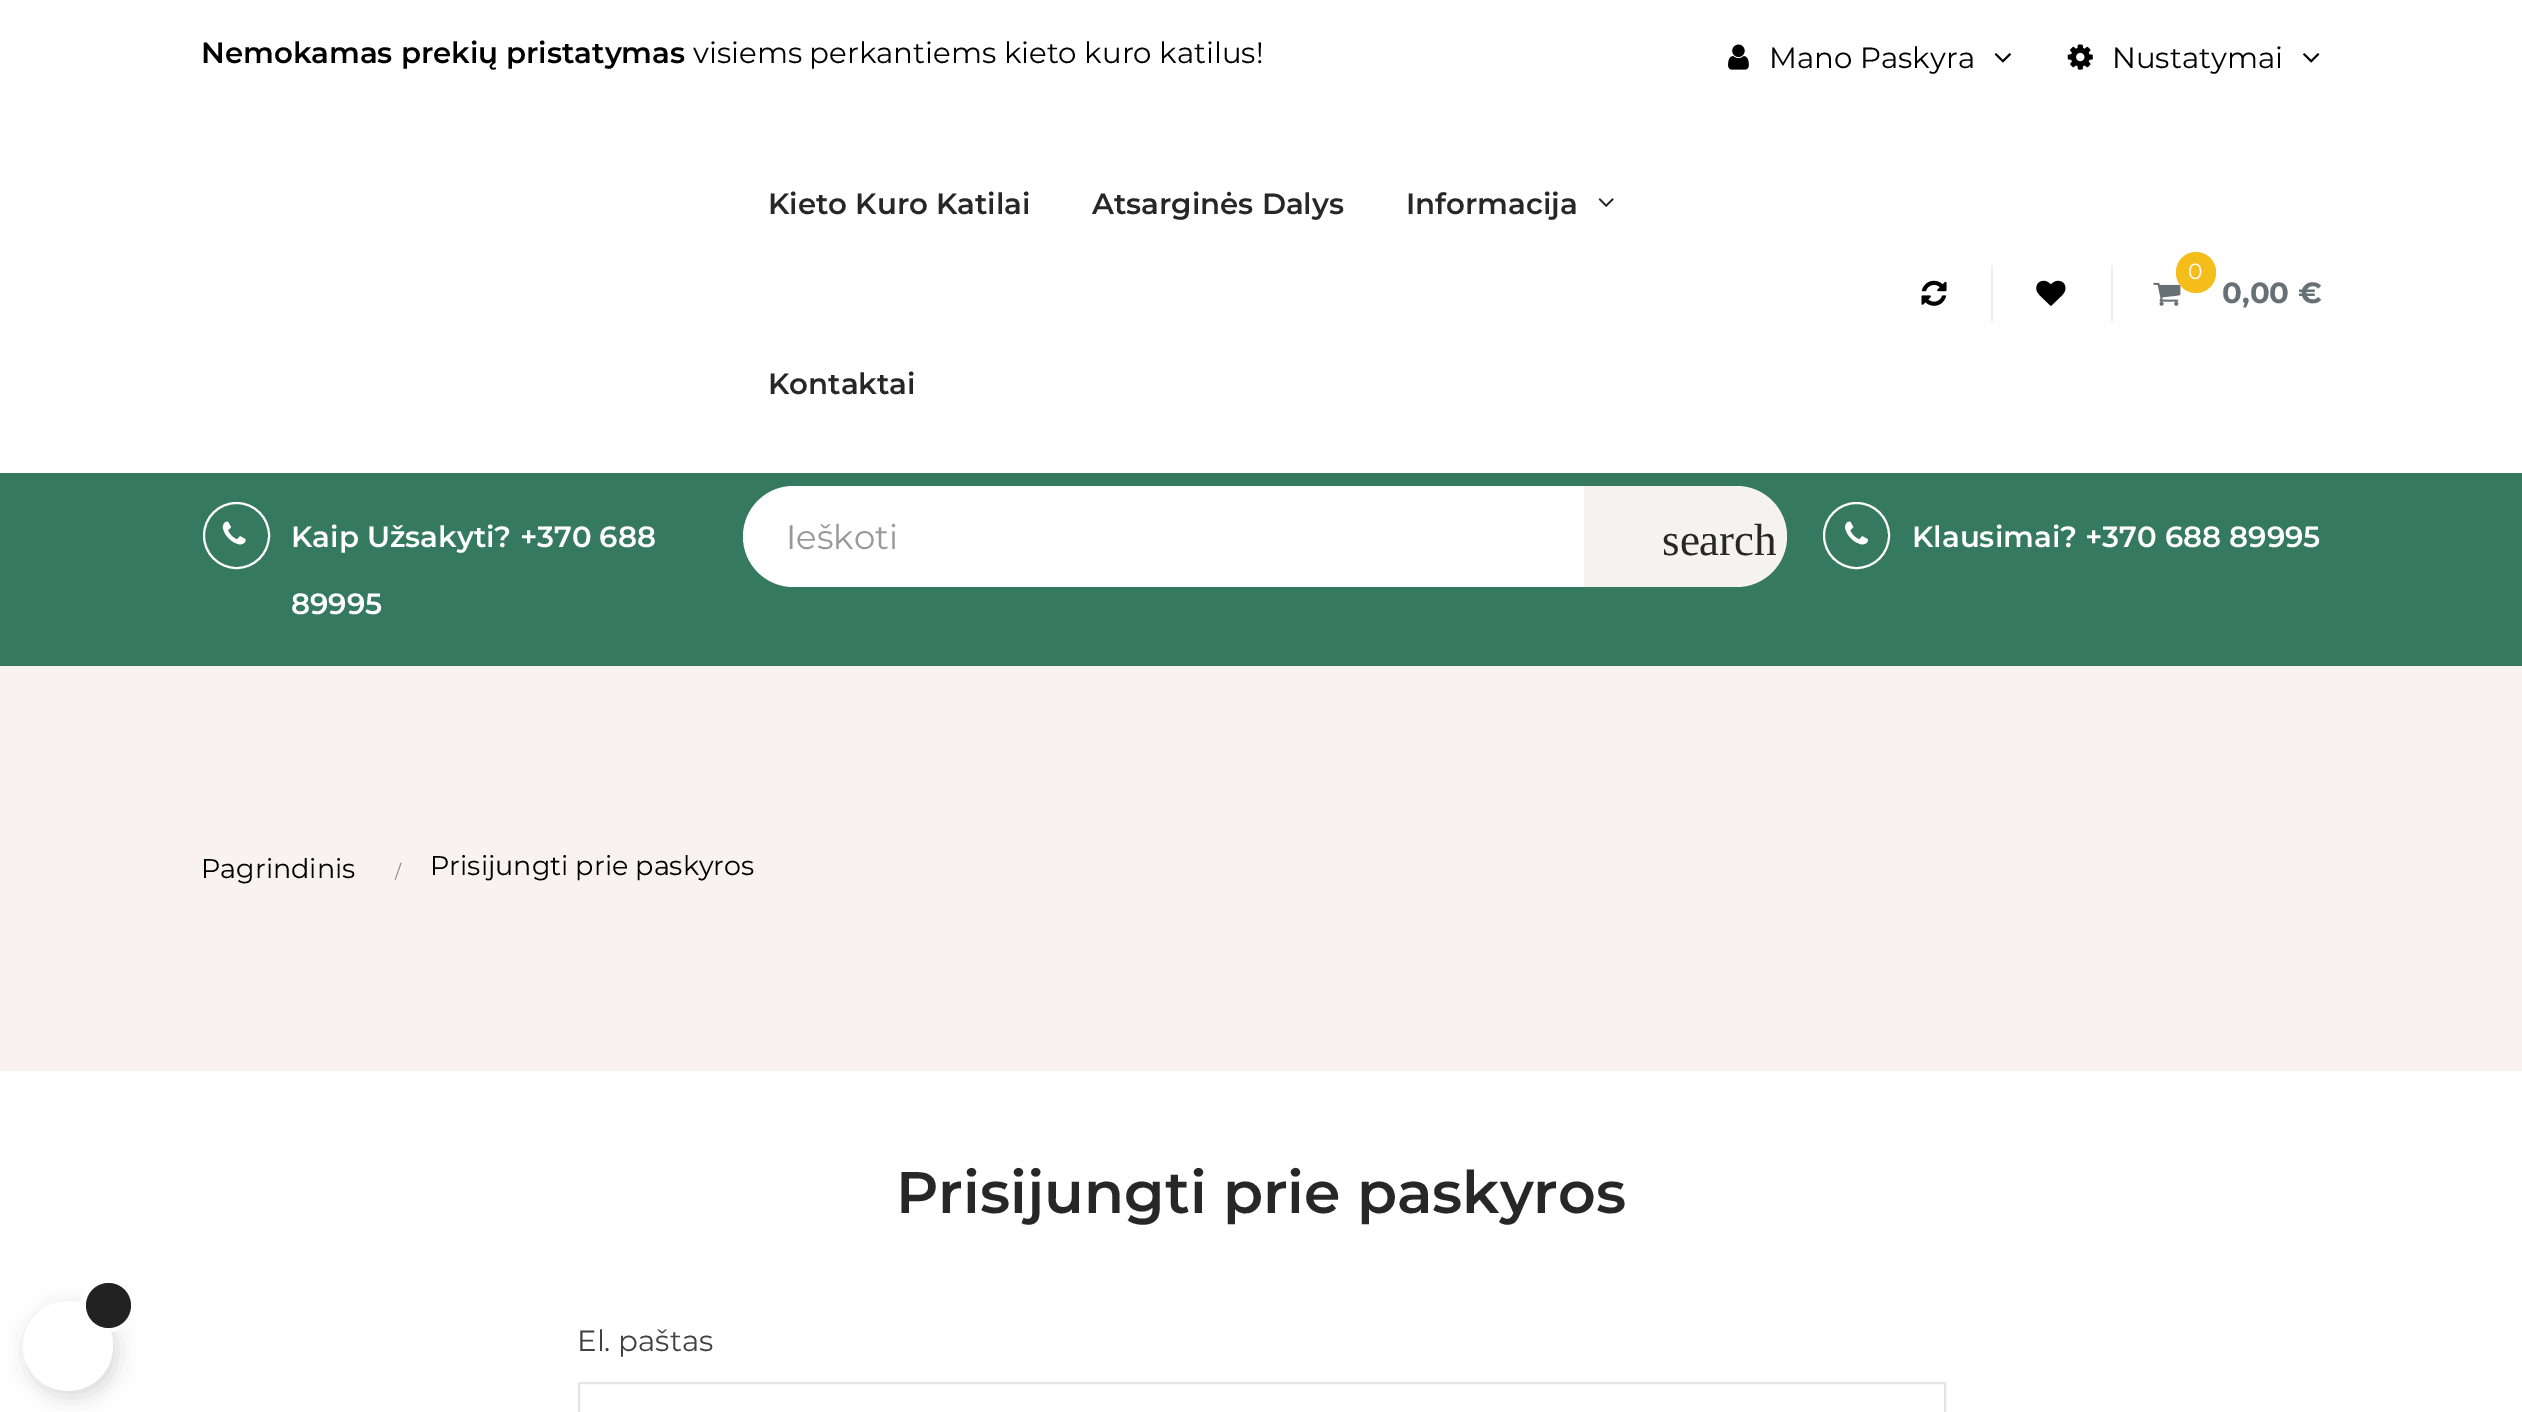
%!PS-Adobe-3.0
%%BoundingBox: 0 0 2522 1412
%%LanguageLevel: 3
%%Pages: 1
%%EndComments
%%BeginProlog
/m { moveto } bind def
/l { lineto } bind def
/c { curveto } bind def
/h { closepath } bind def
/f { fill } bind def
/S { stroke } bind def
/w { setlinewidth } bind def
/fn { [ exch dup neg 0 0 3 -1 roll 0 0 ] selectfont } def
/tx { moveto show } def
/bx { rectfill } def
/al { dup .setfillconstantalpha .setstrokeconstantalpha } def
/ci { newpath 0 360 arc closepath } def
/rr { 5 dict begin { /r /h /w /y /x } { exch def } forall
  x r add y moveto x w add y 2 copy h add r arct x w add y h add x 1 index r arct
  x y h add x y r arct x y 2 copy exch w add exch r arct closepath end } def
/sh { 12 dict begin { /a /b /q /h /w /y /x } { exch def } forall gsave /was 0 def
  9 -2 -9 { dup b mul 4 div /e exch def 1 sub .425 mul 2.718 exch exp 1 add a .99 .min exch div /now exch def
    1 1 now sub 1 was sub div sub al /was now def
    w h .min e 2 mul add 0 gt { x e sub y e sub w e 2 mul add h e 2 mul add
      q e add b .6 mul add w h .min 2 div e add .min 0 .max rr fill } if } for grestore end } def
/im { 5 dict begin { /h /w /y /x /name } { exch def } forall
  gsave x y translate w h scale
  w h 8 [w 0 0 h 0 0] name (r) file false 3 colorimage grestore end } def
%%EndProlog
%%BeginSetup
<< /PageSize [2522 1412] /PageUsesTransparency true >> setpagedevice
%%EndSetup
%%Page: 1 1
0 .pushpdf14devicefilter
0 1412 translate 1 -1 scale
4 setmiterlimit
1 setgray
0 0 2522 1412 bx
0 setgray
27 1307 90 90 45 11 0.15 sh
1 setgray
68 1346 45 ci f
5 w
108 1305 24.5 ci S
0.133 setgray
108.5 1305.5 22.5 ci f
/Montserrat-SemiBold 29.25 fn
0 setgray
(Nemokamas prekių pristatymas) 201 63 tx
/Montserrat-Regular 29.25 fn
(visiems perkantiems kieto kuro katilus!) 693 63 tx
(image0.raw) 1728 44 21 26 im
(Mano Paskyra) 1769 68 tx
(image1.raw) 1994 53 17 10 im
(image2.raw) 2067 44 26 26 im
(Nustatymai) 2112 68 tx
(image3.raw) 2303 53 17 10 im
/Montserrat-SemiBold 29.25 fn
0.153 setgray
(Kieto Kuro Katilai) 768 214 tx
(Atsarginės Dalys) 1092 214 tx
(Informacija) 1406 214 tx
(image4.raw) 1598 198 16 9 im
(Kontaktai) 768 394 tx
0.933 setgray
1991 266 2 56 bx
(image5.raw) 1921 280 26 26 im
2111 266 2 56 bx
(image6.raw) 2036 280 30 26 im
(image7.raw) 2153 282 28 24 im
0.957 0.741 0.102 setrgbcolor
2176 252 40 41 20 rr f
/Montserrat-Regular 22 fn
1 setgray
(0) 2188 279 tx
/Montserrat-Bold 29.25 fn
0.404 0.439 0.455 setrgbcolor
(0,00 €) 2222 303 tx
0.208 0.475 0.376 setrgbcolor
0 473 2522 193 bx
1 setgray
2 w
236.5 535.5 32.5 ci S
(image8.raw) 222 521 24 24 im
/Montserrat-SemiBold 29.25 fn
(Kaip Užsakyti? +370 688) 291 547 tx
(89995) 291 614 tx
743 486 1039 101 50.5 rr f
/Montserrat-Regular 34 fn
0.6 setgray
(Ieškoti) 786 549 tx
0.969 0.949 0.949 setrgbcolor
1584 486 m 1736.5 486 l 1764.5 486 1787 508.5 1787 536.5 c 1787 564.5 1764.5 587 1736.5 587 c 1584 587 l h f
/LiberationSerif-Regular 45 fn
0.153 setgray
(search) 1662 555 tx
1 setgray
1856.5 535.5 32.5 ci S
(image9.raw) 1845 521 23 24 im
/Montserrat-SemiBold 29.25 fn
(Klausimai? +370 688 89995) 1912 547 tx
0.973 0.949 0.949 setrgbcolor
0 666 2522 405 bx
/Montserrat-Regular 27 fn
0 setgray
(Pagrindinis) 201 878 tx
/Montserrat-Regular 18 fn
0.533 setgray
(/) 395 878 tx
/Montserrat-Regular 27 fn
0 setgray
(Prisijungti prie paskyros) 430 875 tx
/Montserrat-SemiBold 58.5 fn
0.153 setgray
(Prisijungti prie paskyros) 896 1213 tx
/Montserrat-Regular 29.25 fn
0.255 setgray
(El. paštas) 577 1351 tx
0.898 setgray
579 1383 1366 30 rectstroke
.poppdf14devicefilter showpage
%%EOF
